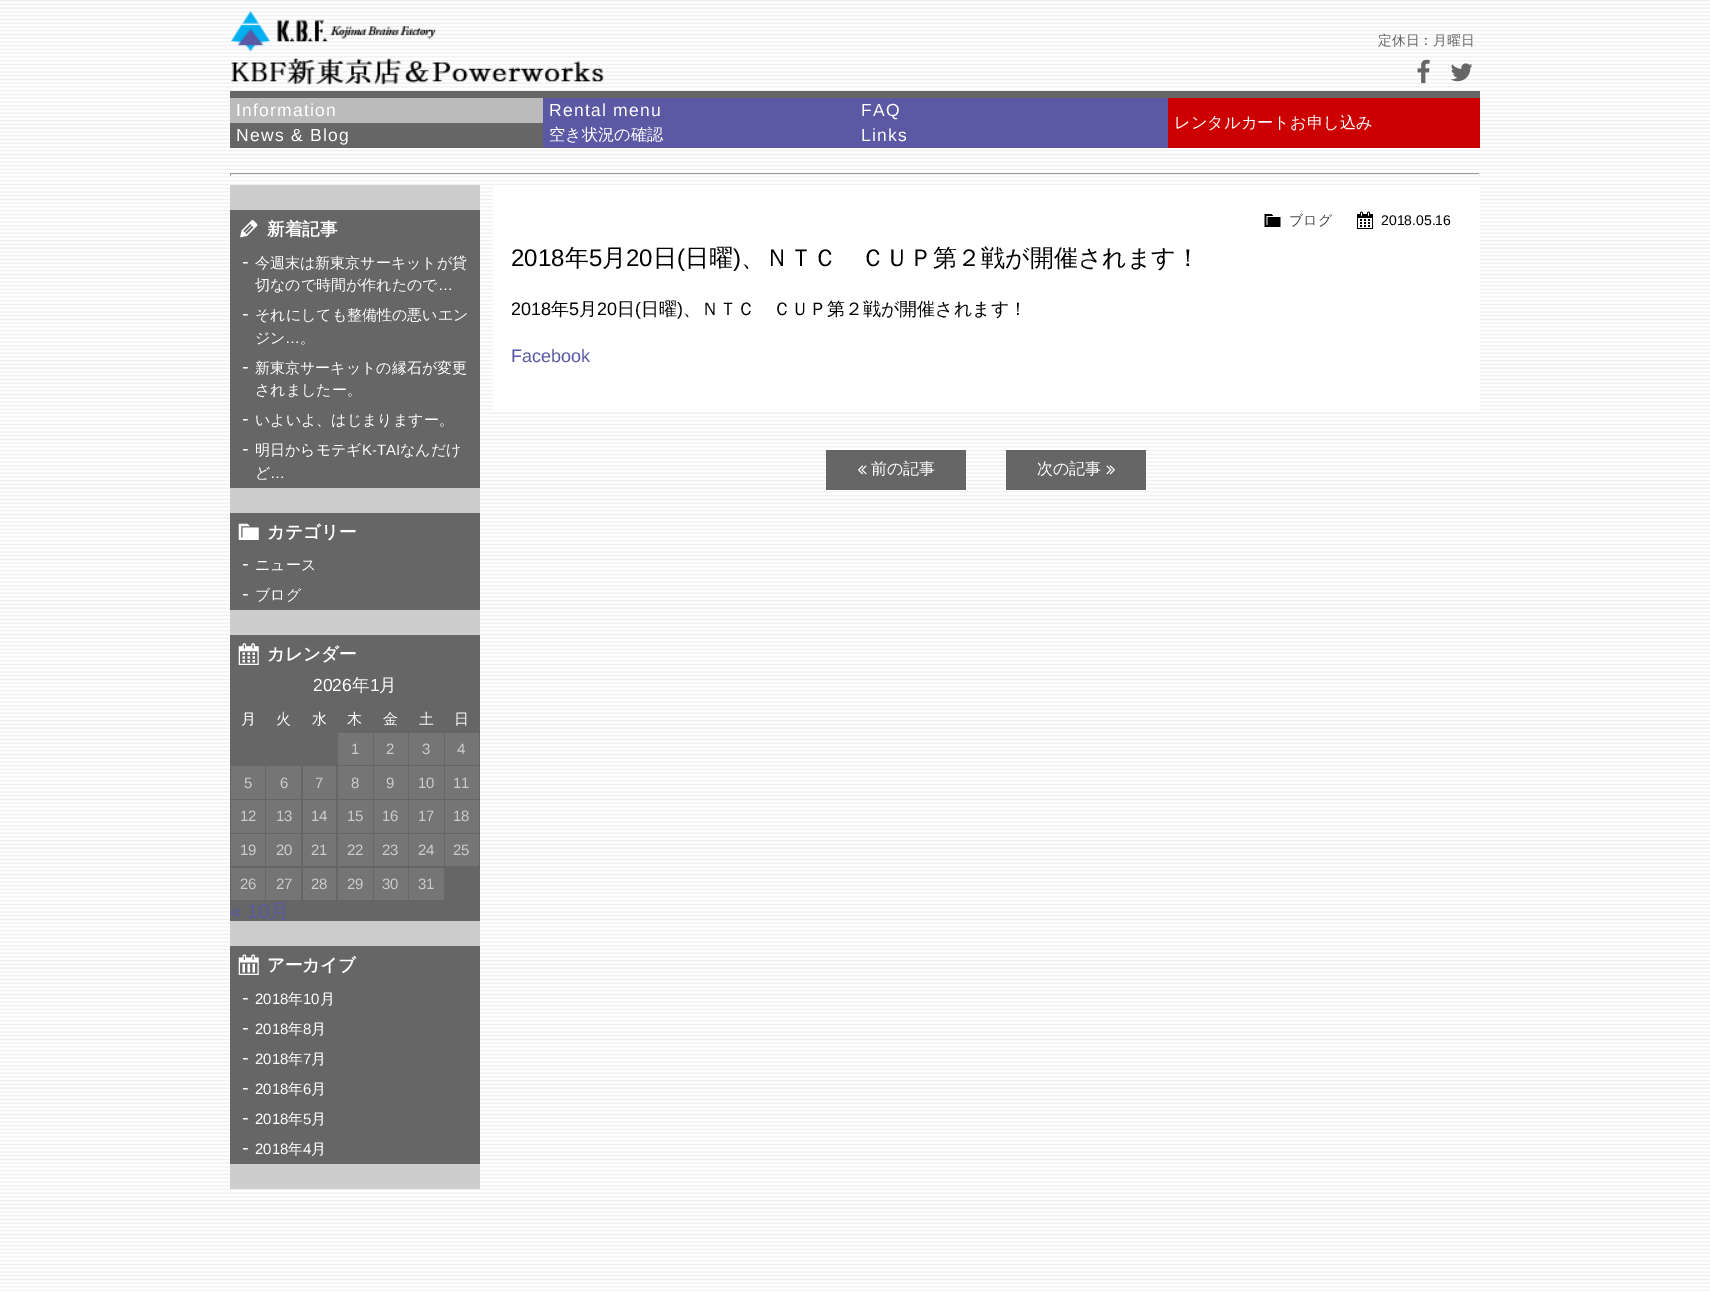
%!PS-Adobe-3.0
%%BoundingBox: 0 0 1710 1291
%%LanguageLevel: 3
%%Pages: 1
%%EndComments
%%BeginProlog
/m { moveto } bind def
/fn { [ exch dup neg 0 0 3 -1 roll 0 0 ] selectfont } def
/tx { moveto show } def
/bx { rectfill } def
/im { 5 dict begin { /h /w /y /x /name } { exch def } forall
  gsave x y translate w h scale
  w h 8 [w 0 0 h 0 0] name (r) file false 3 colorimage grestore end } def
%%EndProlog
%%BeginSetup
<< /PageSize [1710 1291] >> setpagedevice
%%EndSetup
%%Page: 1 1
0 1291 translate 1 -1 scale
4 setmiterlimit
1 setgray
0 0 1710 1291 bx
(image0.raw) 0 0 1710 1291 im
0.4 setgray
230 91 1250 7 bx
(image1.raw) 231 11 373 74 im
/WenQuanYiZenHei-Medium 13.75 fn
(定休日：月曜日) 1378 45 tx
(image2.raw) 1417 59 13 25 im
(image3.raw) 1450 63 23 19 im
0.733 setgray
230 98 313 25 bx
/LiberationSans-Regular 17.5 fn
1 setgray
236 116 m 1.25 0 (Information) ashow
0.357 0.349 0.643 setrgbcolor
543 98 625 25 bx
1 setgray
549 116 m 1.25 0 (Rental menu) ashow
861 116 m 1.25 0 (FAQ) ashow
0.8 0 0 setrgbcolor
1168 98 312 50 bx
/WenQuanYiZenHei-Medium 16.25 fn
1 setgray
(レンタルカートお申し込み) 1174 128 tx
0.4 setgray
230 123 313 25 bx
/LiberationSans-Regular 17.5 fn
1 setgray
236 141 m 1.25 0 (News & Blog) ashow
0.357 0.349 0.643 setrgbcolor
543 123 625 25 bx
/WenQuanYiZenHei-Medium 16.25 fn
1 setgray
(空き状況の確認) 549 140 tx
/LiberationSans-Regular 17.5 fn
861 141 m 1.25 0 (Links) ashow
0.624 setgray
230 173 1250 1 bx
0.933 setgray
1479 173 1 3 bx
230 174 1250 1 bx
0.624 setgray
230 173 1 3 bx
0.808 0.804 0.808 setrgbcolor
230 185 250 1004 bx
0.4 setgray
230 210 250 278 bx
(image4.raw) 240 220 18 18 im
/WenQuanYiZenHei-Bold 17.5 fn
1 setgray
(新着記事) 267 235 tx
/LiberationSans-Regular 20 fn
(-) 242 268 tx
/WenQuanYiZenHei-Medium 15 fn
(今週末は新東京サーキットが貸) 255 268 tx
(切なので時間が作れたので) 255 290 tx
/LiberationSans-Regular 15 fn
(…) 438 290 tx
/LiberationSans-Regular 20 fn
(-) 242 320 tx
/WenQuanYiZenHei-Medium 15 fn
(それにしても整備性の悪いエン) 255 320 tx
(ジン) 255 343 tx
/LiberationSans-Regular 15 fn
(…) 285 343 tx
/WenQuanYiZenHei-Medium 15 fn
(。) 300 343 tx
/LiberationSans-Regular 20 fn
(-) 242 373 tx
/WenQuanYiZenHei-Medium 15 fn
(新東京サーキットの縁石が変更) 255 373 tx
(されましたー。) 255 395 tx
/LiberationSans-Regular 20 fn
(-) 242 425 tx
/WenQuanYiZenHei-Medium 15 fn
(いよいよ、はじまりますー。) 255 425 tx
/LiberationSans-Regular 20 fn
(-) 242 455 tx
/WenQuanYiZenHei-Medium 15 fn
(明日からモテギ) 255 455 tx
/LiberationSans-Regular 15 fn
(K-TAI) 362 455 tx
/WenQuanYiZenHei-Medium 15 fn
(なんだけ) 400 455 tx
(ど) 255 478 tx
/LiberationSans-Regular 15 fn
(…) 270 478 tx
0.4 setgray
230 513 250 97 bx
(image5.raw) 238 523 21 17 im
/WenQuanYiZenHei-Bold 17.5 fn
1 setgray
(カテゴリー) 267 538 tx
/LiberationSans-Regular 20 fn
(-) 242 570 tx
/WenQuanYiZenHei-Medium 15 fn
(ニュース) 255 570 tx
/LiberationSans-Regular 20 fn
(-) 242 600 tx
/WenQuanYiZenHei-Medium 15 fn
(ブログ) 255 600 tx
0.4 setgray
230 635 250 286 bx
(image6.raw) 238 643 21 22 im
/WenQuanYiZenHei-Bold 17.5 fn
1 setgray
(カレンダー) 267 660 tx
/LiberationSans-Regular 17.5 fn
(2026) 313 691 tx
/WenQuanYiZenHei-Medium 17.5 fn
(年) 352 691 tx
/LiberationSans-Regular 17.5 fn
(1) 370 691 tx
/WenQuanYiZenHei-Medium 17.5 fn
(月) 379 691 tx
/WenQuanYiZenHei-Medium 15 fn
(月) 241 724 tx
(火) 276 724 tx
(水) 312 724 tx
(木) 347 724 tx
(金) 383 724 tx
(土) 419 724 tx
(日) 454 724 tx
0.459 setgray
338 733 35 32 bx
/LiberationSans-Regular 15 fn
0.8 setgray
(1) 351 754 tx
0.459 setgray
374 733 34 32 bx
0.8 setgray
(2) 386 754 tx
0.459 setgray
409 733 35 32 bx
0.8 setgray
(3) 422 754 tx
0.459 setgray
445 733 34 32 bx
0.8 setgray
(4) 457 754 tx
0.459 setgray
231 766 34 33 bx
0.8 setgray
(5) 244 788 tx
0.459 setgray
266 766 35 33 bx
0.8 setgray
(6) 280 788 tx
0.459 setgray
303 766 33 33 bx
0.8 setgray
(7) 315 788 tx
0.459 setgray
338 766 35 33 bx
0.8 setgray
(8) 351 788 tx
0.459 setgray
374 766 34 33 bx
0.8 setgray
(9) 386 788 tx
0.459 setgray
409 766 35 33 bx
0.8 setgray
(10) 418 788 tx
0.459 setgray
445 766 34 33 bx
0.8 setgray
(11) 453 788 tx
0.459 setgray
231 800 34 33 bx
0.8 setgray
(12) 240 821 tx
0.459 setgray
266 800 35 33 bx
0.8 setgray
(13) 276 821 tx
0.459 setgray
303 800 33 33 bx
0.8 setgray
(14) 311 821 tx
0.459 setgray
338 800 35 33 bx
0.8 setgray
(15) 347 821 tx
0.459 setgray
374 800 34 33 bx
0.8 setgray
(16) 382 821 tx
0.459 setgray
409 800 35 33 bx
0.8 setgray
(17) 418 821 tx
0.459 setgray
445 800 34 33 bx
0.8 setgray
(18) 453 821 tx
0.459 setgray
231 834 34 32 bx
0.8 setgray
(19) 240 855 tx
0.459 setgray
266 834 35 32 bx
0.8 setgray
(20) 276 855 tx
0.459 setgray
303 834 33 32 bx
0.8 setgray
(21) 311 855 tx
0.459 setgray
338 834 35 32 bx
0.8 setgray
(22) 347 855 tx
0.459 setgray
374 834 34 32 bx
0.8 setgray
(23) 382 855 tx
0.459 setgray
409 834 35 32 bx
0.8 setgray
(24) 418 855 tx
0.459 setgray
445 834 34 32 bx
0.8 setgray
(25) 453 855 tx
0.459 setgray
231 868 34 32 bx
0.8 setgray
(26) 240 889 tx
0.459 setgray
266 868 35 32 bx
0.8 setgray
(27) 276 889 tx
0.459 setgray
303 868 33 32 bx
0.8 setgray
(28) 311 889 tx
0.459 setgray
338 868 35 32 bx
0.8 setgray
(29) 347 889 tx
0.459 setgray
374 868 34 32 bx
0.8 setgray
(30) 382 889 tx
0.459 setgray
409 868 35 32 bx
0.8 setgray
(31) 418 889 tx
/LiberationSans-Regular 20 fn
0.357 0.349 0.643 setrgbcolor
(« 10) 230 918 tx
/WenQuanYiZenHei-Medium 20 fn
(月) 269 918 tx
0.4 setgray
230 946 250 218 bx
(image7.raw) 238 954 21 21 im
/WenQuanYiZenHei-Bold 17.5 fn
1 setgray
(アーカイブ) 267 971 tx
/LiberationSans-Regular 20 fn
(-) 242 1004 tx
/LiberationSans-Regular 15 fn
(2018) 255 1004 tx
/WenQuanYiZenHei-Medium 15 fn
(年) 288 1004 tx
/LiberationSans-Regular 15 fn
(10) 303 1004 tx
/WenQuanYiZenHei-Medium 15 fn
(月) 320 1004 tx
/LiberationSans-Regular 20 fn
(-) 242 1034 tx
/LiberationSans-Regular 15 fn
(2018) 255 1034 tx
/WenQuanYiZenHei-Medium 15 fn
(年) 288 1034 tx
/LiberationSans-Regular 15 fn
(8) 303 1034 tx
/WenQuanYiZenHei-Medium 15 fn
(月) 311 1034 tx
/LiberationSans-Regular 20 fn
(-) 242 1064 tx
/LiberationSans-Regular 15 fn
(2018) 255 1064 tx
/WenQuanYiZenHei-Medium 15 fn
(年) 288 1064 tx
/LiberationSans-Regular 15 fn
(7) 303 1064 tx
/WenQuanYiZenHei-Medium 15 fn
(月) 311 1064 tx
/LiberationSans-Regular 20 fn
(-) 242 1094 tx
/LiberationSans-Regular 15 fn
(2018) 255 1094 tx
/WenQuanYiZenHei-Medium 15 fn
(年) 288 1094 tx
/LiberationSans-Regular 15 fn
(6) 303 1094 tx
/WenQuanYiZenHei-Medium 15 fn
(月) 311 1094 tx
/LiberationSans-Regular 20 fn
(-) 242 1124 tx
/LiberationSans-Regular 15 fn
(2018) 255 1124 tx
/WenQuanYiZenHei-Medium 15 fn
(年) 288 1124 tx
/LiberationSans-Regular 15 fn
(5) 303 1124 tx
/WenQuanYiZenHei-Medium 15 fn
(月) 311 1124 tx
/LiberationSans-Regular 20 fn
(-) 242 1154 tx
/LiberationSans-Regular 15 fn
(2018) 255 1154 tx
/WenQuanYiZenHei-Medium 15 fn
(年) 288 1154 tx
/LiberationSans-Regular 15 fn
(4) 303 1154 tx
/WenQuanYiZenHei-Medium 15 fn
(月) 311 1154 tx
493 187 987 223 bx
(image8.raw) 1264 214 17 13 im
/WenQuanYiZenHei-Medium 14 fn
0.271 setgray
(ブログ) 1289 225 tx
(image9.raw) 1357 211 16 18 im
/LiberationSans-Regular 14 fn
0 setgray
(2018.05.16) 1381 225 tx
/LiberationSans-Regular 24 fn
(2018) 511 266 tx
/WenQuanYiZenHei-Medium 24 fn
(年) 565 266 tx
/LiberationSans-Regular 24 fn
(5) 589 266 tx
/WenQuanYiZenHei-Medium 24 fn
(月) 602 266 tx
/LiberationSans-Regular 24 fn
(20) 626 266 tx
/WenQuanYiZenHei-Medium 24 fn
(日) 653 266 tx
/LiberationSans-Regular 24 fn
(\() 677 266 tx
/WenQuanYiZenHei-Medium 24 fn
(日曜) 685 266 tx
/LiberationSans-Regular 24 fn
(\)) 733 266 tx
/WenQuanYiZenHei-Medium 24 fn
(、ＮＴＣ　ＣＵＰ第２戦が開催されます！) 741 266 tx
/LiberationSans-Regular 18 fn
(2018) 511 315 tx
/WenQuanYiZenHei-Medium 18 fn
(年) 551 315 tx
/LiberationSans-Regular 18 fn
(5) 569 315 tx
/WenQuanYiZenHei-Medium 18 fn
(月) 579 315 tx
/LiberationSans-Regular 18 fn
(20) 597 315 tx
/WenQuanYiZenHei-Medium 18 fn
(日) 617 315 tx
/LiberationSans-Regular 18 fn
(\() 635 315 tx
/WenQuanYiZenHei-Medium 18 fn
(日曜) 641 315 tx
/LiberationSans-Regular 18 fn
(\)) 677 315 tx
/WenQuanYiZenHei-Medium 18 fn
(、ＮＴＣ　ＣＵＰ第２戦が開催されます！) 683 315 tx
/LiberationSans-Regular 18 fn
0.357 0.349 0.643 setrgbcolor
(Facebook) 511 362 tx
0.4 setgray
826 450 140 40 bx
(image10.raw) 858 465 9 10 im
/WenQuanYiZenHei-Medium 16 fn
1 setgray
(前の記事) 871 474 tx
0.4 setgray
1006 450 140 40 bx
1 setgray
(次の記事) 1037 474 tx
(image11.raw) 1106 465 9 10 im
showpage
%%EOF
